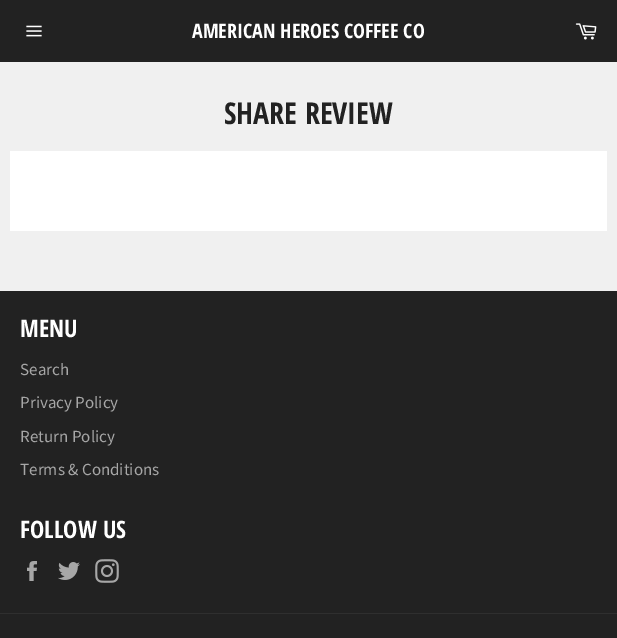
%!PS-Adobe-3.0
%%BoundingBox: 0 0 617 638
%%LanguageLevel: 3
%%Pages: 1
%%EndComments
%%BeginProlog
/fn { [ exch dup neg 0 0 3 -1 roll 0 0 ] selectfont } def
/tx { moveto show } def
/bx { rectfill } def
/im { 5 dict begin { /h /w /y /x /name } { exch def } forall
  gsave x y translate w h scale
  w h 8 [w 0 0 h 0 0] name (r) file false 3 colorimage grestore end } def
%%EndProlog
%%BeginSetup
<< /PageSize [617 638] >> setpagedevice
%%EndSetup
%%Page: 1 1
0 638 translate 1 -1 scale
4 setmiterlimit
0.941 setgray
0 0 617 638 bx
0.133 setgray
0 0 617 62 bx
(image0.raw) 26 25 16 12 im
/OpenSansCondensed-Bold 20 fn
1 setgray
(AMERICAN HEROES COFFEE CO) 192 38 tx
(image1.raw) 575 23 22 17 im
/OpenSansCondensed-Bold 30 fn
0.133 setgray
(SHARE REVIEW) 224 124 tx
1 setgray
10 151 597 80 bx
0.133 setgray
0 291 617 347 bx
/OpenSansCondensed-Bold 24 fn
1 setgray
(MENU) 20 337 tx
/SourceSansPro-Regular 17 fn
0.655 setgray
(Search) 20 375 tx
(Privacy Policy) 20 408 tx
(Return Policy) 20 442 tx
(Terms & Conditions) 20 475 tx
/OpenSansCondensed-Bold 24 fn
1 setgray
(FOLLOW US) 20 538 tx
(image2.raw) 27 561 10 20 im
(image3.raw) 58 562 22 18 im
(image4.raw) 95 559 24 24 im
0.184 setgray
0 613 617 1 bx
showpage
%%EOF
